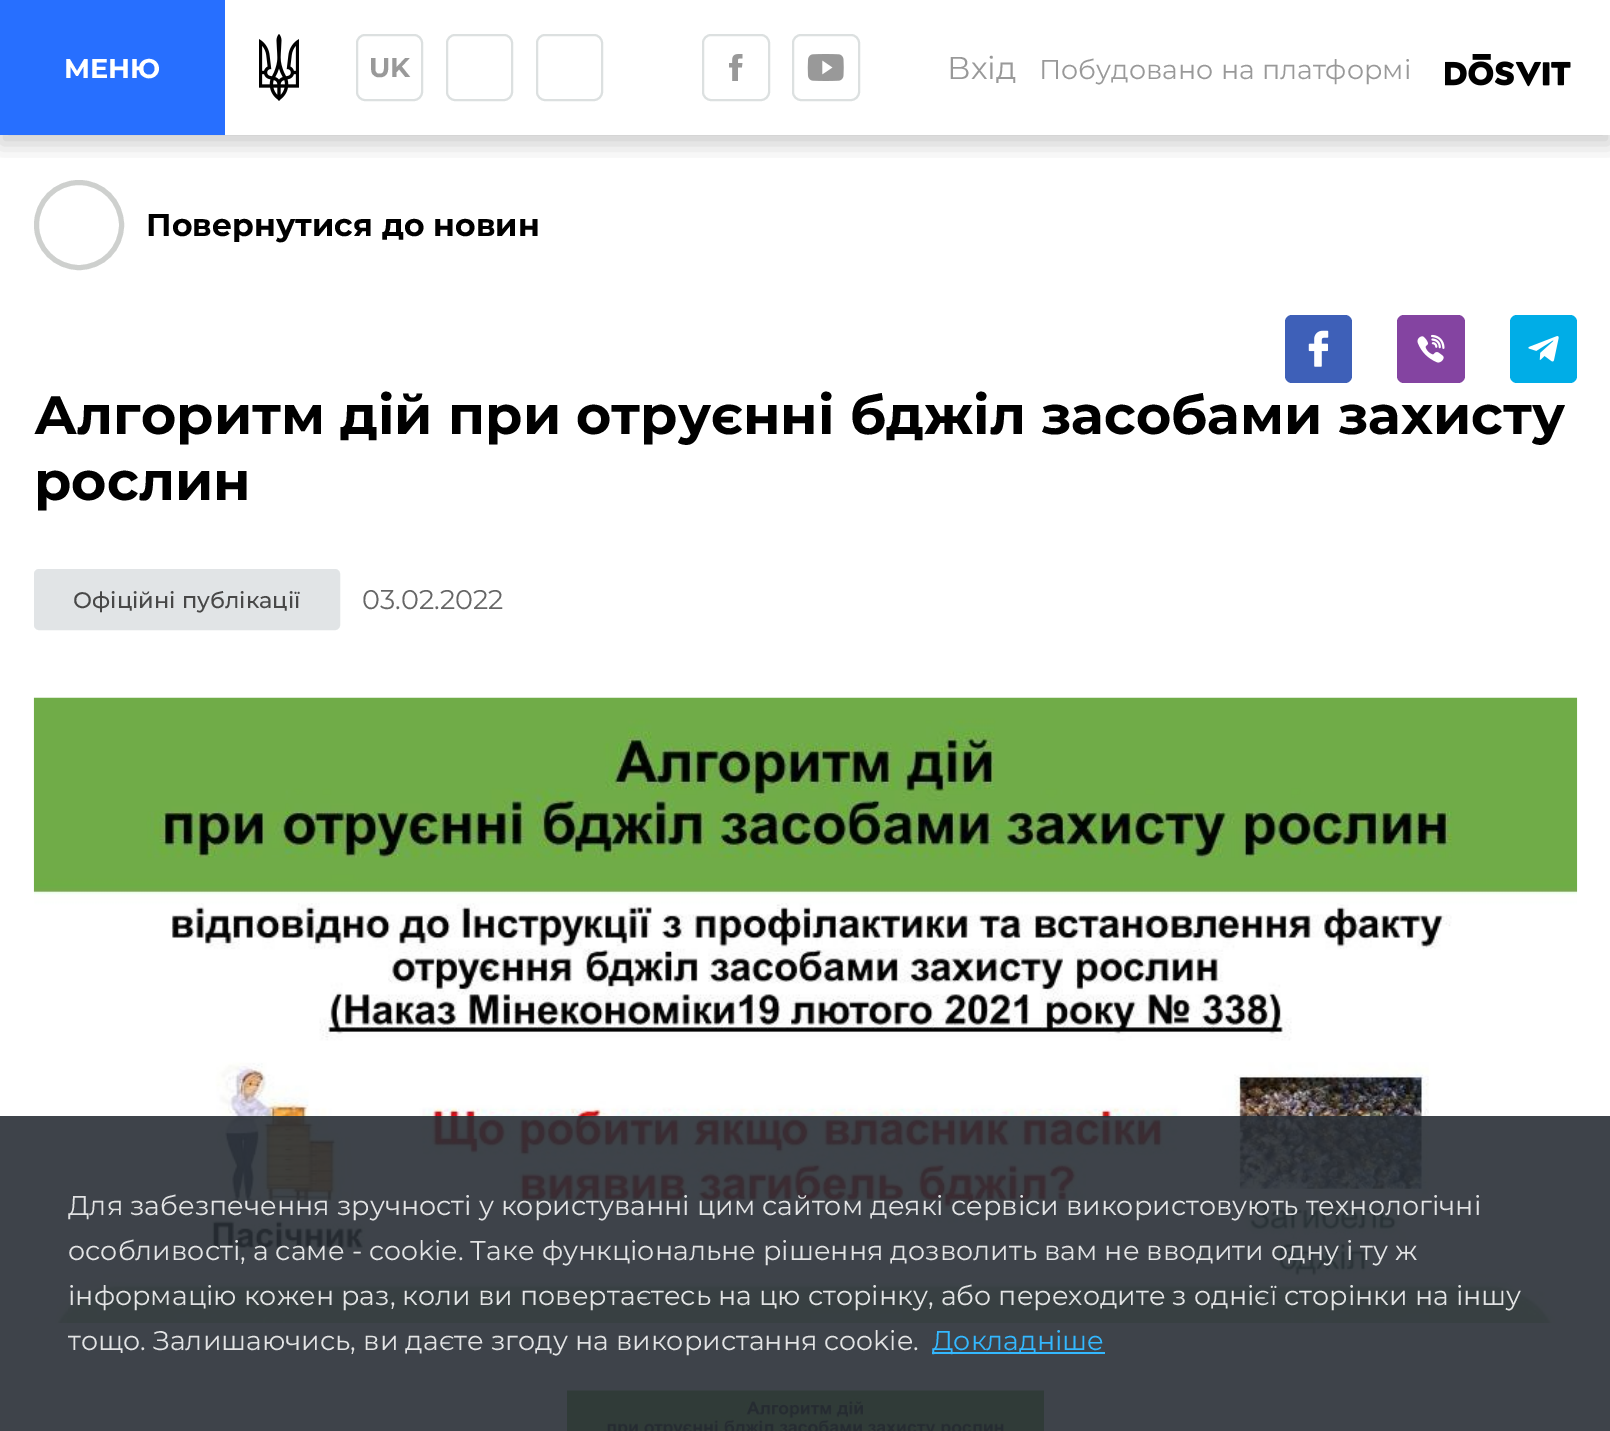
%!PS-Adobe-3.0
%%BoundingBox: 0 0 1610 1431
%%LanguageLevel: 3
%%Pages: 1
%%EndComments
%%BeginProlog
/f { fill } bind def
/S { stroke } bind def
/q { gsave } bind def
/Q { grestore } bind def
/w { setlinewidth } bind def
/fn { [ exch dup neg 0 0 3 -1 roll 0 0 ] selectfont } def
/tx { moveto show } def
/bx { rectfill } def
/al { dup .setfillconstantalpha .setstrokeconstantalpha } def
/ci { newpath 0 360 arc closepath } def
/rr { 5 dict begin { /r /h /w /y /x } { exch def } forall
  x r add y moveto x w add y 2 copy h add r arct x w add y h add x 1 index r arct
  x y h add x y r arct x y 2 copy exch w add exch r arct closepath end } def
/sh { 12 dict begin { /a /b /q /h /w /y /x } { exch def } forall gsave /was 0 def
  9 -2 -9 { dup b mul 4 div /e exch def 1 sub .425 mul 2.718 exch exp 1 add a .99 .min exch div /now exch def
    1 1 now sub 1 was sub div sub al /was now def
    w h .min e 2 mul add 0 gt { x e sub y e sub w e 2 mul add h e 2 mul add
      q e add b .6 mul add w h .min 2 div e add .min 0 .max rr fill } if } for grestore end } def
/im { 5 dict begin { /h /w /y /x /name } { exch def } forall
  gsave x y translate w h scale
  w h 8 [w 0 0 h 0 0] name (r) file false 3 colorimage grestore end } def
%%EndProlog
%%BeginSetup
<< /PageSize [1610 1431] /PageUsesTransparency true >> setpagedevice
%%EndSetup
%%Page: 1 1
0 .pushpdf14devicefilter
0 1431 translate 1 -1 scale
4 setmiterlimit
1 setgray
0 0 1610 1431 bx
q
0 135 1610 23 rectclip
0 setgray
0 9 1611 135 0 11 0.2 sh
Q
0.153 0.435 1 setrgbcolor
0 0 225 135 bx
/Montserrat-Bold 27 fn
1 setgray
(МЕНЮ) 64 78 tx
(image0.raw) 259 34 40 67 im
0.863 0.878 0.878 setrgbcolor
2 w
357 35 65 65 8 rr S
0.6 setgray
(UK) 369 77 tx
0.863 0.878 0.878 setrgbcolor
447 35 65 65 8 rr S
537 35 65 65 8 rr S
703 35 66 65 8 rr S
(image1.raw) 729 54 14 27 im
793 35 66 65 8 rr S
(image2.raw) 807 54 37 27 im
/Montserrat-Regular 31.5 fn
0.6 setgray
(Вхід) 947 79 tx
/Montserrat-Regular 27 fn
(Побудовано на платформі) 1039 79 tx
(image3.raw) 1445 54 126 33 im
0.808 0.816 0.808 setrgbcolor
5 w
79 225 42.5 ci S
/Montserrat-Bold 31.5 fn
0 setgray
(Повернутися до новин) 146 236 tx
0.243 0.376 0.722 setrgbcolor
1285 315 67 68 7 rr f
(image4.raw) 1308 330 21 37 im
0.518 0.267 0.631 setrgbcolor
1397 315 68 68 7 rr f
(image5.raw) 1417 334 28 29 im
0 0.678 0.906 setrgbcolor
1510 315 67 68 7 rr f
(image6.raw) 1528 336 31 26 im
/Montserrat-Bold 54 fn
0 setgray
(Алгоритм дій при отруєнні бджіл засобами захисту) 34 434 tx
(рослин) 34 500 tx
0.882 0.894 0.902 setrgbcolor
35 570 304 59 4 rr q f Q
2 w
S
/Montserrat-Medium 22.5 fn
0.282 setgray
(Офіційні публікації) 73 608 tx
/Montserrat-Regular 27 fn
0.4 setgray
(03.02.2022) 362 609 tx
(image7.raw) 33 697 1545 626 im
(image8.raw) 567 1390 477 41 im
0.9 al
0.161 0.184 0.212 setrgbcolor
0 1116 1610 315 bx
1 al
0.886 0.89 0.894 setrgbcolor
(Для забезпечення зручності у користуванні цим сайтом деякі сервіси використовують технологічні) 68 1215 tx
(особливості, а саме - cookie. Таке функціональне рішення дозволить вам не вводити одну і ту ж) 68 1260 tx
(інформацію кожен раз, коли ви повертаєтесь на цю сторінку, або переходите з однієї сторінки на іншу) 68 1305 tx
(тощо. Залишаючись, ви даєте згоду на використання cookie.) 68 1350 tx
0.2 0.722 1 setrgbcolor
932 1352 173 2 bx
(Докладніше) 932 1350 tx
.poppdf14devicefilter showpage
%%EOF
